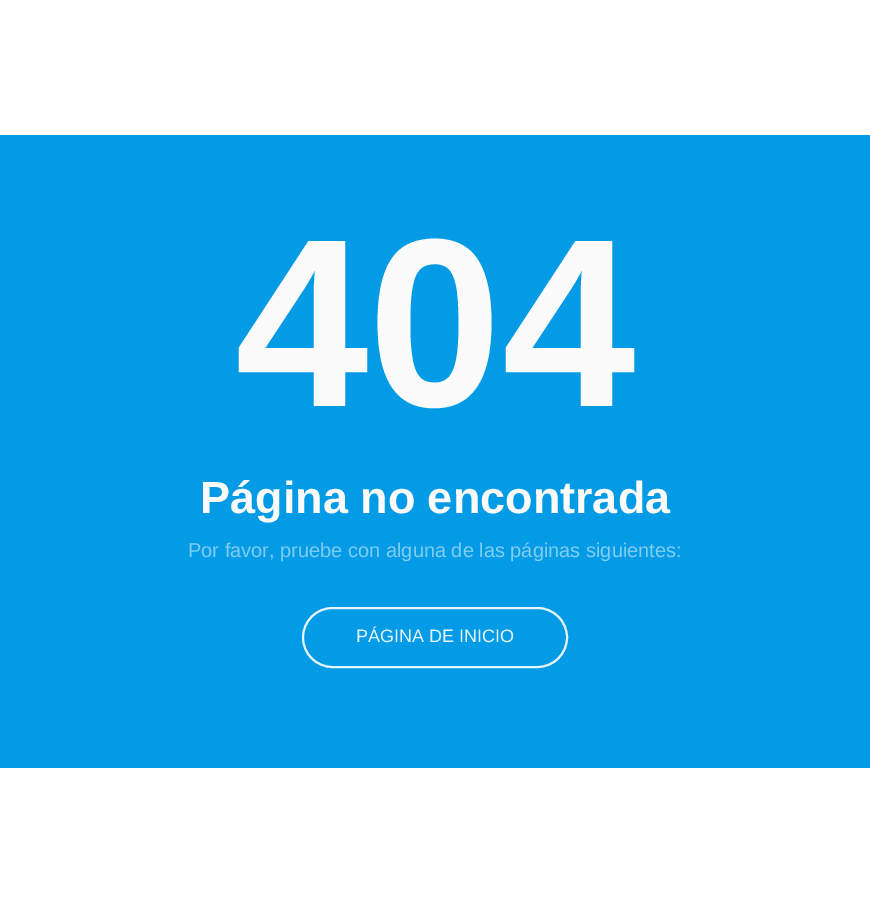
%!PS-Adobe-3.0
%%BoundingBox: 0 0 870 902
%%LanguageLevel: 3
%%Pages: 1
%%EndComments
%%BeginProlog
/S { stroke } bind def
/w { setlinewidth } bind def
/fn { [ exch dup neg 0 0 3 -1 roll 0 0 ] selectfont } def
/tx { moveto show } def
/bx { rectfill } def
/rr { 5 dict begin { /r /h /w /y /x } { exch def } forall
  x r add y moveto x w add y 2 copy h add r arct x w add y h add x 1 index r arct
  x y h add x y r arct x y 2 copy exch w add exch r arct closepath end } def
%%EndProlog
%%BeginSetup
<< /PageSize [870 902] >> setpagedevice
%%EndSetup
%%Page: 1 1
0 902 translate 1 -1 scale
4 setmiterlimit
1 setgray
0 0 870 902 bx
0.012 0.608 0.898 setrgbcolor
0 135 870 633 bx
/LiberationSans-Bold 240 fn
0.984 setgray
(404) 235 406 tx
/LiberationSans-Bold 45 fn
(Página no encontrada) 200 513 tx
/LiberationSans-Regular 20 fn
0.506 0.804 0.949 setrgbcolor
(Por favor, pruebe con alguna de las páginas siguientes:) 188 557 tx
0.902 0.961 0.988 setrgbcolor
2 w
303 608 264 59 29.5 rr S
/LiberationSans-Regular 18 fn
(PÁGINA DE INICIO) 356 642 tx
showpage
%%EOF
